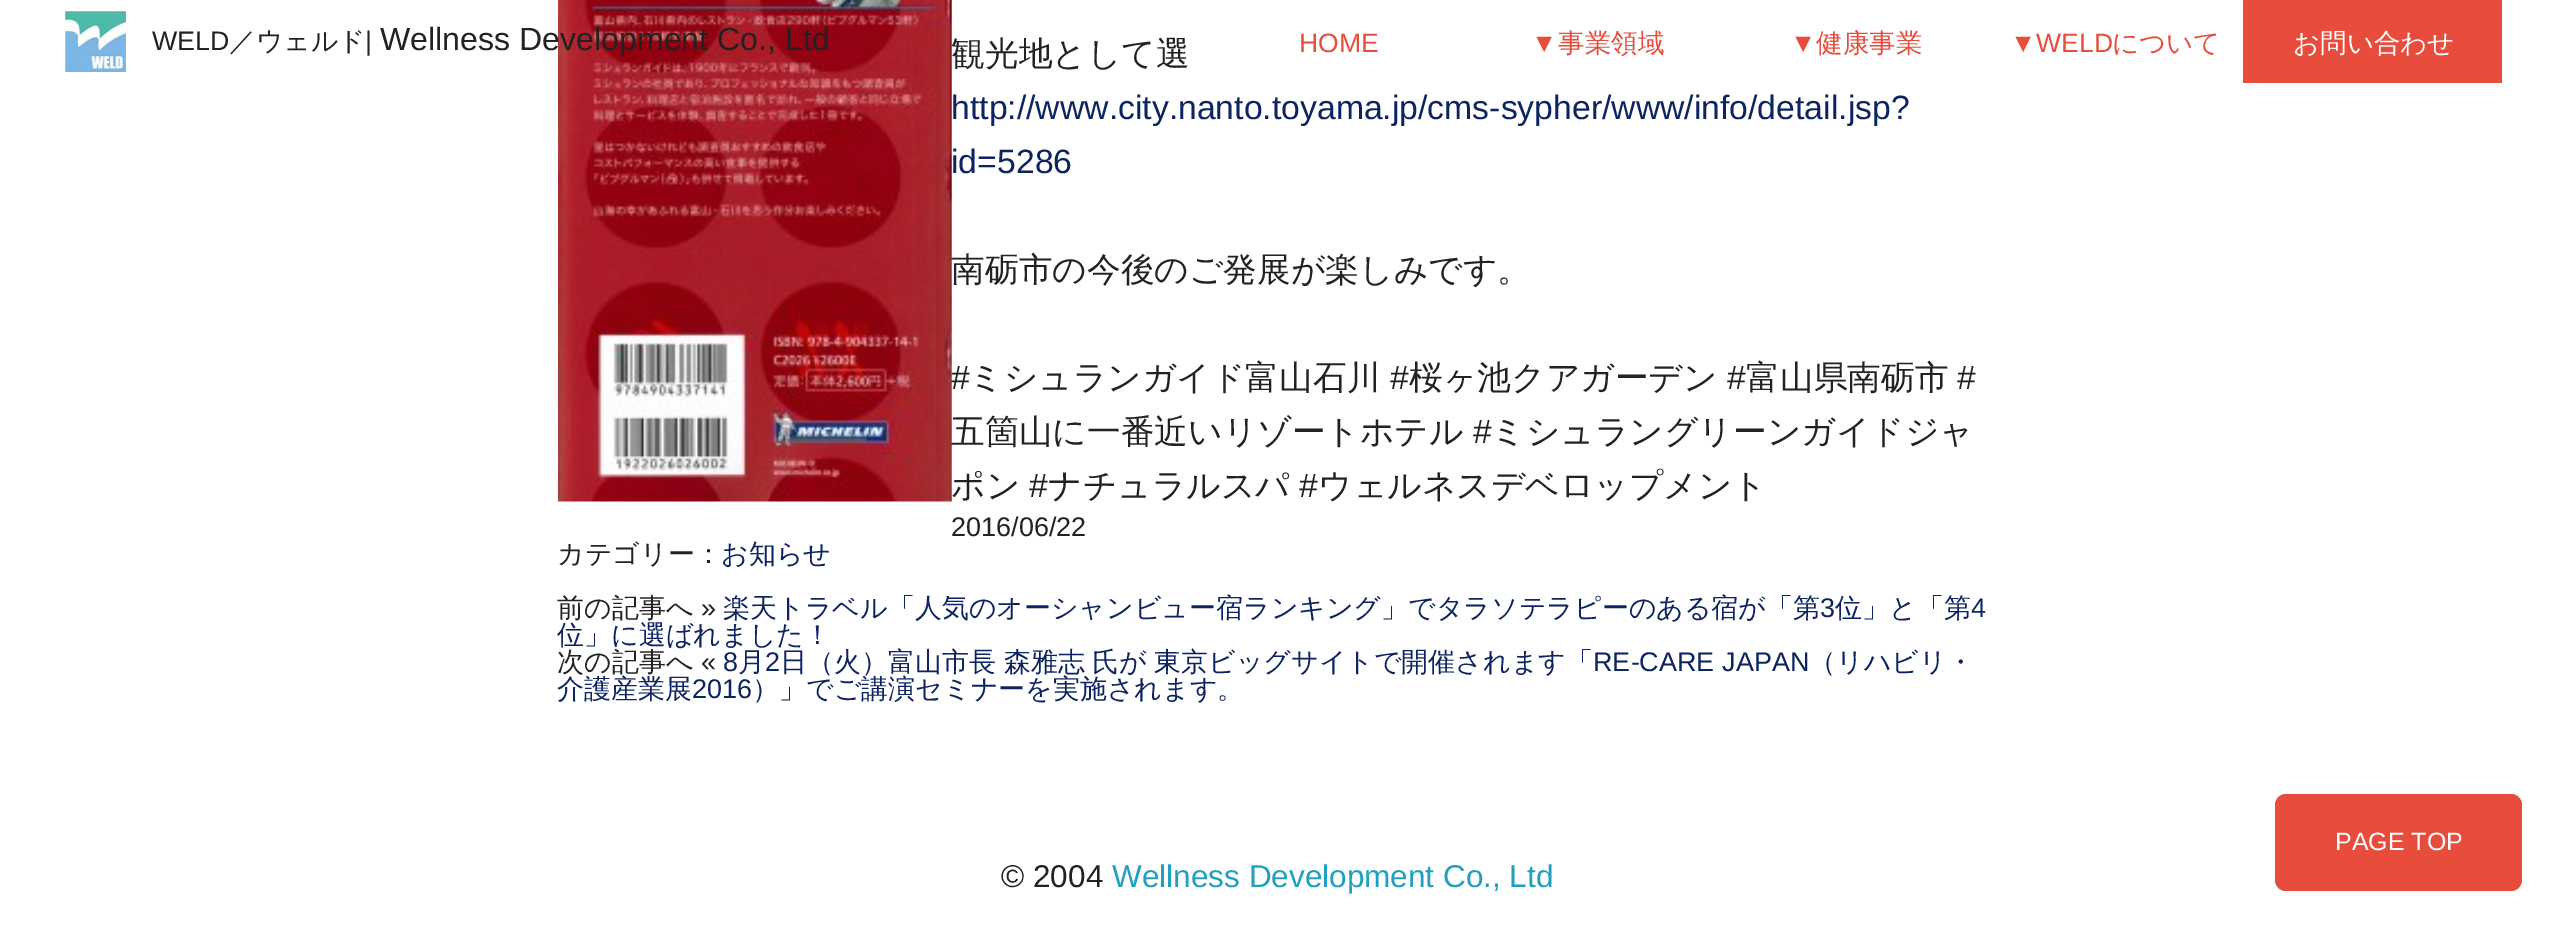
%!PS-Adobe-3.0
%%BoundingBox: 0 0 2567 934
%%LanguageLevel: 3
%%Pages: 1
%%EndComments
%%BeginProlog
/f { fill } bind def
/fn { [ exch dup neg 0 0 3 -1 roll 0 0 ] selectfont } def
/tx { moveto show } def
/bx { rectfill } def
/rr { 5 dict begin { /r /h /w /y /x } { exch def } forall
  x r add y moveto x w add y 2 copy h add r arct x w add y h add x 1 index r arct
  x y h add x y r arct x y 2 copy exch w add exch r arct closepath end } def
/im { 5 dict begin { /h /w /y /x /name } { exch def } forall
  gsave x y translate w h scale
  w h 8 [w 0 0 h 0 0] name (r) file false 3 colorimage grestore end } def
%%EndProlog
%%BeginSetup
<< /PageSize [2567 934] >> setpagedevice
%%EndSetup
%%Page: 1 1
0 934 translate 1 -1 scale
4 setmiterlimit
1 setgray
0 0 2567 934 bx
(image0.raw) 65 11 61 61 im
/LiberationSans-Regular 26.75 fn
0.133 setgray
(WELD) 152 50 tx
/WenQuanYiZenHei-Medium 26.75 fn
(／ウェルド) 229 50 tx
/LiberationSans-Regular 26.75 fn
(|) 365 50 tx
(image1.raw) 558 0 394 502 im
/LiberationSans-Regular 32.1 fn
(Wellness Development Co., Ltd) 380 50 tx
/LiberationSans-Regular 26.5 fn
0.906 0.298 0.235 setrgbcolor
(HOME) 1299 52 tx
(▼) 1531 52 tx
/WenQuanYiZenHei-Medium 26.5 fn
(事業領域) 1558 52 tx
/LiberationSans-Regular 26.5 fn
(▼) 1790 52 tx
/WenQuanYiZenHei-Medium 26.5 fn
(健康事業) 1816 52 tx
/LiberationSans-Regular 26.5 fn
(▼WELD) 2010 52 tx
/WenQuanYiZenHei-Medium 26.5 fn
(について) 2112 52 tx
2243 0 259 83 bx
1 setgray
(お問い合わせ) 2293 52 tx
/WenQuanYiZenHei-Medium 33.75 fn
0.133 setgray
(観光地として選) 951 65 tx
/LiberationSans-Regular 33.75 fn
0.047 0.141 0.38 setrgbcolor
(http://www.city.nanto.toyama.jp/cms-sypher/www/info/detail.jsp?) 951 119 tx
(id=5286) 951 173 tx
/WenQuanYiZenHei-Medium 33.75 fn
0.133 setgray
(南砺市の今後のご発展が楽しみです。) 951 281 tx
/LiberationSans-Regular 33.75 fn
(#) 951 389 tx
/WenQuanYiZenHei-Medium 33.75 fn
(ミシュランガイド富山石川) 969 389 tx
/LiberationSans-Regular 33.75 fn
(#) 1390 389 tx
/WenQuanYiZenHei-Medium 33.75 fn
(桜ヶ池クアガーデン) 1409 389 tx
/LiberationSans-Regular 33.75 fn
(#) 1727 389 tx
/WenQuanYiZenHei-Medium 33.75 fn
(富山県南砺市) 1746 389 tx
/LiberationSans-Regular 33.75 fn
(#) 1957 389 tx
/WenQuanYiZenHei-Medium 33.75 fn
(五箇山に一番近いリゾートホテル) 951 443 tx
/LiberationSans-Regular 33.75 fn
(#) 1473 443 tx
/WenQuanYiZenHei-Medium 33.75 fn
(ミシュラングリーンガイドジャ) 1491 443 tx
(ポン) 951 497 tx
/LiberationSans-Regular 33.75 fn
(#) 1029 497 tx
/WenQuanYiZenHei-Medium 33.75 fn
(ナチュラルスパ) 1048 497 tx
/LiberationSans-Regular 33.75 fn
(#) 1299 497 tx
/WenQuanYiZenHei-Medium 33.75 fn
(ウェルネスデベロップメント) 1318 497 tx
/LiberationSans-Regular 27 fn
(2016/06/22) 951 536 tx
/WenQuanYiZenHei-Medium 27 fn
(カテゴリー：) 557 563 tx
0.047 0.141 0.38 setrgbcolor
(お知らせ) 721 563 tx
0.133 setgray
(前の記事へ) 557 617 tx
/LiberationSans-Regular 27 fn
(») 701 617 tx
/WenQuanYiZenHei-Medium 27 fn
0.047 0.141 0.38 setrgbcolor
(楽天トラベル「人気のオーシャンビュー宿ランキング」でタラソテラピーのある宿が「第) 723 617 tx
/LiberationSans-Regular 27 fn
(3) 1820 617 tx
/WenQuanYiZenHei-Medium 27 fn
(位」と「第) 1835 617 tx
/LiberationSans-Regular 27 fn
(4) 1971 617 tx
/WenQuanYiZenHei-Medium 27 fn
(位」に選ばれました！) 557 644 tx
0.133 setgray
(次の記事へ) 557 671 tx
/LiberationSans-Regular 27 fn
(«) 701 671 tx
0.047 0.141 0.38 setrgbcolor
(8) 723 671 tx
/WenQuanYiZenHei-Medium 27 fn
(月) 738 671 tx
/LiberationSans-Regular 27 fn
(2) 765 671 tx
/WenQuanYiZenHei-Medium 27 fn
(日（火）富山市長) 780 671 tx
(森雅志) 1004 671 tx
(氏が) 1092 671 tx
(東京ビッグサイトで開催されます「) 1154 671 tx
/LiberationSans-Regular 27 fn
(RE-CARE JAPAN) 1593 671 tx
/WenQuanYiZenHei-Medium 27 fn
(（リハビリ・) 1809 671 tx
(介護産業展) 557 698 tx
/LiberationSans-Regular 27 fn
(2016) 692 698 tx
/WenQuanYiZenHei-Medium 27 fn
(）」でご講演セミナーを実施されます。) 752 698 tx
/LiberationSans-Regular 31.5 fn
0.133 setgray
(© 2004) 1001 887 tx
0.125 0.627 0.753 setrgbcolor
(Wellness Development Co., Ltd) 1112 887 tx
0.906 0.298 0.235 setrgbcolor
2275 794 247 97 11 rr f
/LiberationSans-Regular 25 fn
1 setgray
(PAGE TOP) 2335 850 tx
showpage
%%EOF
